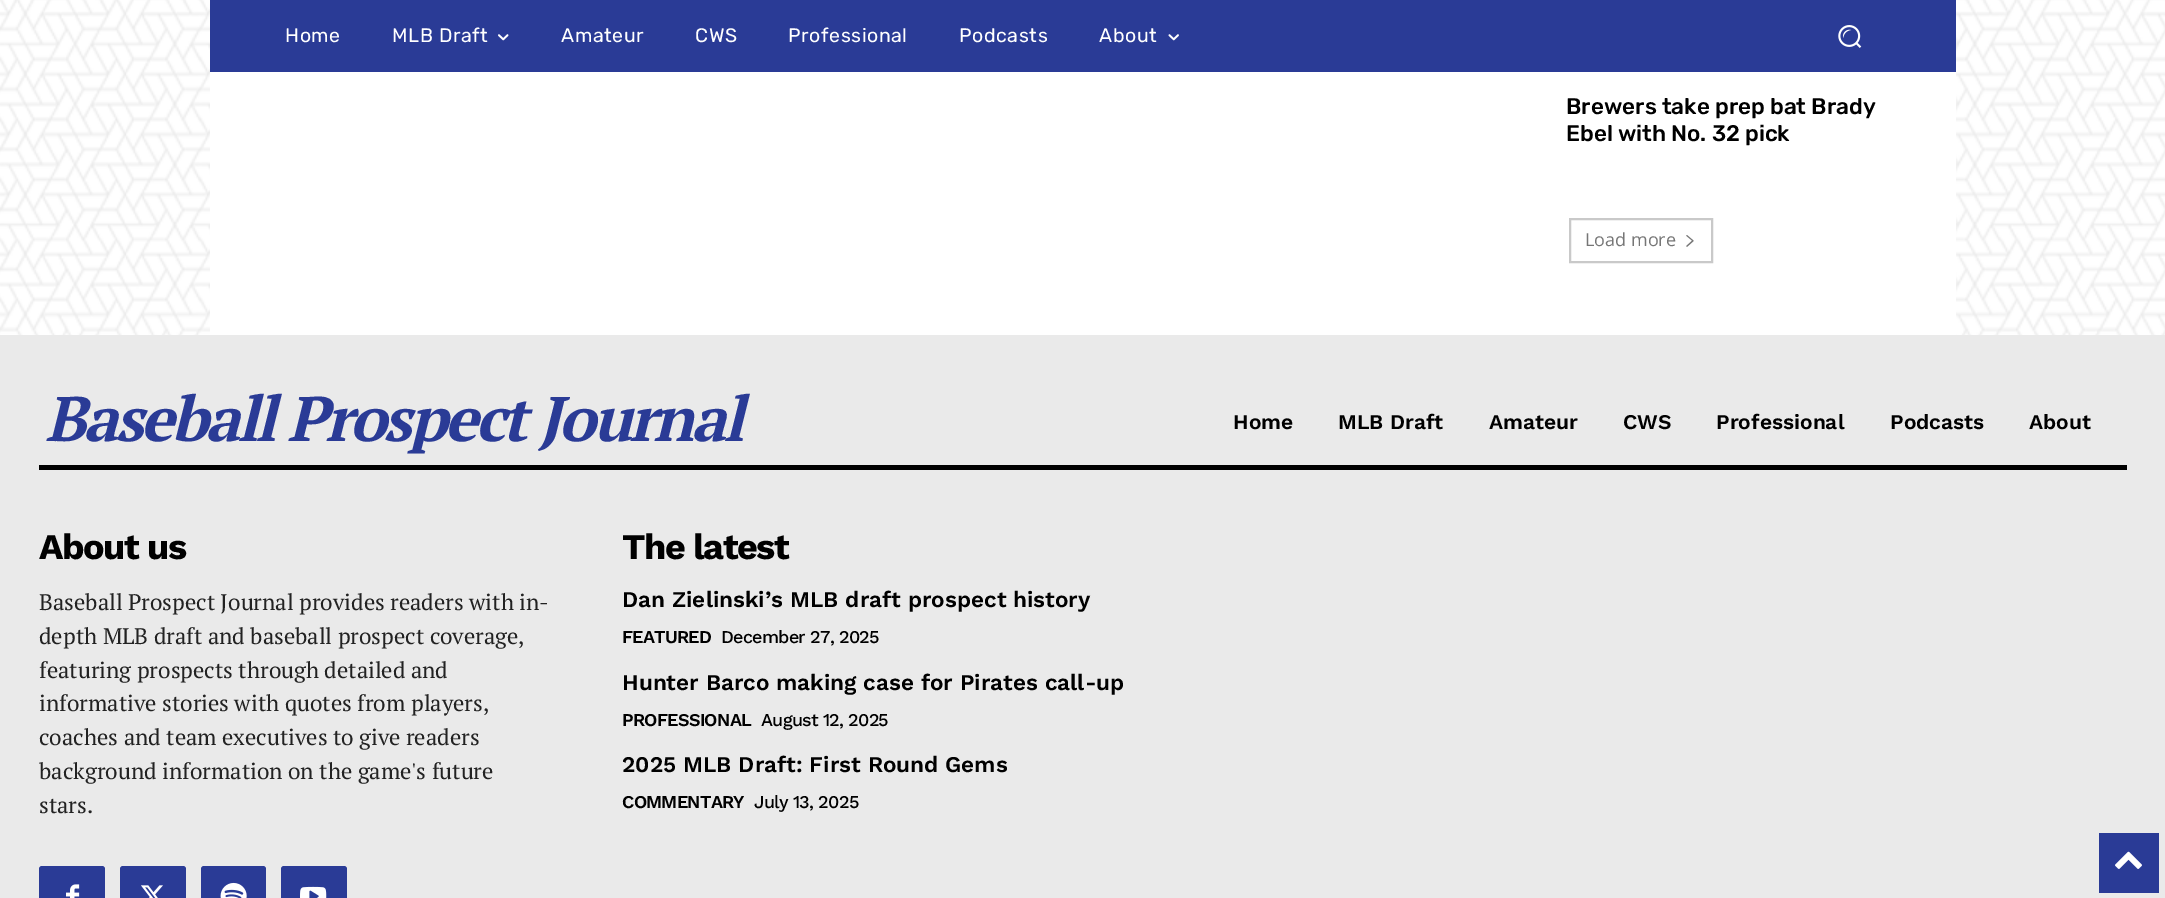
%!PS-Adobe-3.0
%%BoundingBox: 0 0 2165 898
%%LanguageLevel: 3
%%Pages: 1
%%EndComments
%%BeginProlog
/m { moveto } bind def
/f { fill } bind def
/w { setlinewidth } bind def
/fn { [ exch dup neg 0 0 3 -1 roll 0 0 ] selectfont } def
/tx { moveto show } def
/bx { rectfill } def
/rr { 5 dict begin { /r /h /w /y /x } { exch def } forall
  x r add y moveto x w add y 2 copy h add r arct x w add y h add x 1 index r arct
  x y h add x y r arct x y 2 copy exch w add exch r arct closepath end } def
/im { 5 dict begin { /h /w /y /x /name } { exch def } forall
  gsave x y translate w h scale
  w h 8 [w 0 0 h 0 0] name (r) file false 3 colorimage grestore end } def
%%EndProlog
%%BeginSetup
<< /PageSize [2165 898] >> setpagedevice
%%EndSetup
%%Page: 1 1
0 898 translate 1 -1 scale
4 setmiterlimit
1 setgray
0 0 2165 898 bx
(image0.raw) 0 0 2165 335 im
0.165 0.231 0.588 setrgbcolor
210 0 1746 72 bx
/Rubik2-Light 19.5 fn
1 setgray
285 42 m 0.6 0 (Home) ashow
392 42 m 0.6 0 (MLB Draft) ashow
(image1.raw) 498 34 11 7 im
561 42 m 0.6 0 (Amateur) ashow
695 42 m 0.6 0 (CWS) ashow
788 42 m 0.6 0 (Professional) ashow
959 42 m 0.6 0 (Podcasts) ashow
1099 42 m 0.6 0 (About) ashow
(image2.raw) 1168 34 11 7 im
(image3.raw) 1838 25 24 23 im
210 72 1746 263 bx
/Rubik-Light 22.5 fn
0 setgray
(Brewers take prep bat Brady) 1566 114 tx
(Ebel with No. 32 pick) 1566 141 tx
0.788 setgray
2 w
1570 219 142 43 rectstroke
/OpenSans-Regular 18 fn
0.463 setgray
(Load more) 1585 246 tx
(image4.raw) 1686 235 8 12 im
0.918 setgray
0 335 2165 563 bx
0 setgray
39 465 2088 5 bx
/PTSerif-BoldItalic 63 fn
0.165 0.231 0.588 setrgbcolor
45 441 m -3 0 (Baseball Prospect Journal) ashow
/WorkSans-SemiBold 21 fn
0 setgray
(Home) 1233 429 tx
(MLB Draft) 1338 429 tx
(Amateur) 1489 429 tx
(CWS) 1623 429 tx
(Professional) 1716 429 tx
(Podcasts) 1890 429 tx
(About) 2029 429 tx
/WorkSans-Bold 36 fn
39 559 m -1.5 0 (About us) ashow
/PTSerif-Regular 22.5 fn
0.133 setgray
(Baseball Prospect Journal provides readers with in-) 39 610 tx
(depth MLB draft and baseball prospect coverage,) 39 644 tx
(featuring prospects through detailed and) 39 678 tx
(informative stories with quotes from players,) 39 711 tx
(coaches and team executives to give readers) 39 745 tx
(background information on the game's future) 39 779 tx
(stars.) 39 813 tx
0.165 0.231 0.588 setrgbcolor
39 866 66 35 3 rr f
(image5.raw) 66 884 14 14 im
120 866 66 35 3 rr f
(image6.raw) 141 885 22 13 im
201 866 65 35 3 rr f
(image7.raw) 220 882 27 16 im
281 866 66 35 3 rr f
(image8.raw) 300 886 27 12 im
/WorkSans-Bold 36 fn
0 setgray
622 559 m -1.5 0 (The latest) ashow
/WorkSans-SemiBold 22.5 fn
(Dan Zielinski’s MLB draft prospect history) 622 607 tx
/WorkSans-SemiBold 18 fn
622 643 m -0.75 0 (FEATURED) ashow
/WorkSans-Medium 18 fn
721 643 m -0.75 0 (December 27, 2025) ashow
/WorkSans-SemiBold 22.5 fn
(Hunter Barco making case for Pirates call-up) 622 690 tx
/WorkSans-SemiBold 18 fn
622 726 m -0.75 0 (PROFESSIONAL) ashow
/WorkSans-Medium 18 fn
761 726 m -0.75 0 (August 12, 2025) ashow
/WorkSans-SemiBold 22.5 fn
(2025 MLB Draft: First Round Gems) 622 772 tx
/WorkSans-SemiBold 18 fn
622 808 m -0.75 0 (COMMENTARY) ashow
/WorkSans-Medium 18 fn
754 808 m -0.75 0 (July 13, 2025) ashow
0.165 0.231 0.588 setrgbcolor
2099 833 60 60 bx
(image9.raw) 2115 851 27 18 im
showpage
%%EOF
